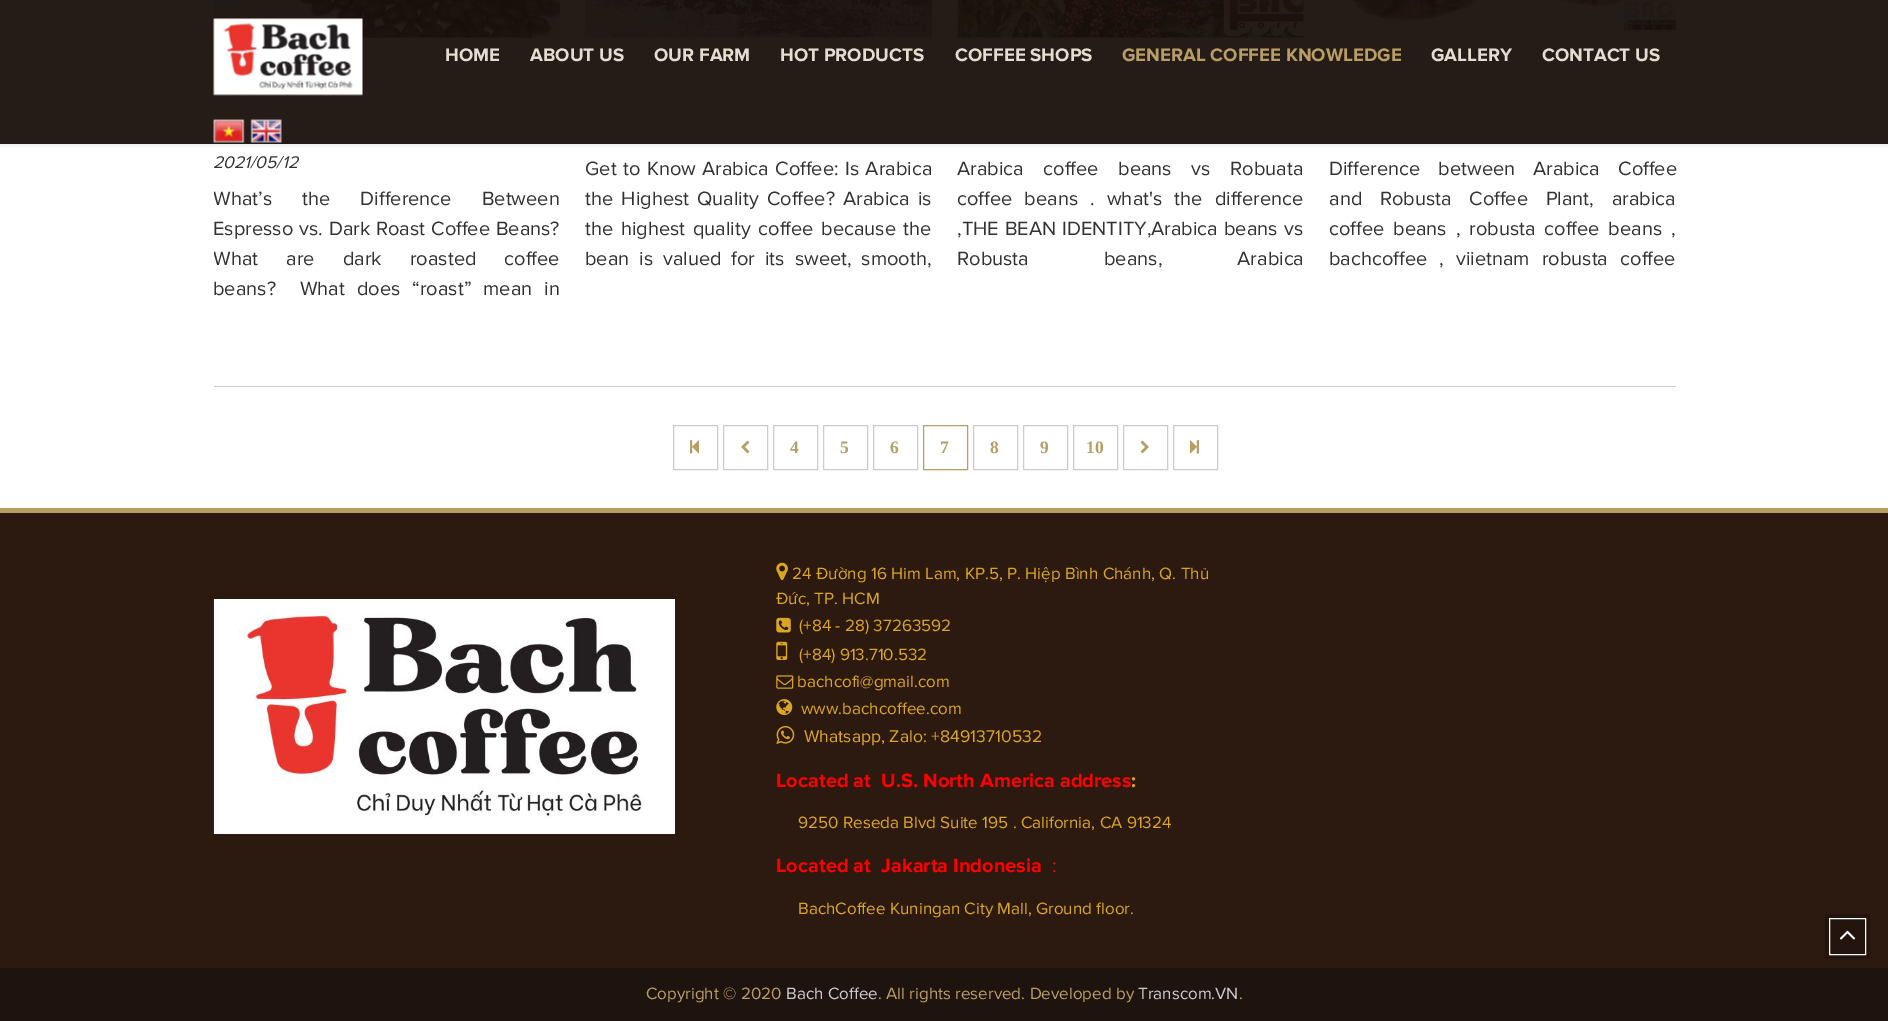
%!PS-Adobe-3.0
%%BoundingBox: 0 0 1888 1021
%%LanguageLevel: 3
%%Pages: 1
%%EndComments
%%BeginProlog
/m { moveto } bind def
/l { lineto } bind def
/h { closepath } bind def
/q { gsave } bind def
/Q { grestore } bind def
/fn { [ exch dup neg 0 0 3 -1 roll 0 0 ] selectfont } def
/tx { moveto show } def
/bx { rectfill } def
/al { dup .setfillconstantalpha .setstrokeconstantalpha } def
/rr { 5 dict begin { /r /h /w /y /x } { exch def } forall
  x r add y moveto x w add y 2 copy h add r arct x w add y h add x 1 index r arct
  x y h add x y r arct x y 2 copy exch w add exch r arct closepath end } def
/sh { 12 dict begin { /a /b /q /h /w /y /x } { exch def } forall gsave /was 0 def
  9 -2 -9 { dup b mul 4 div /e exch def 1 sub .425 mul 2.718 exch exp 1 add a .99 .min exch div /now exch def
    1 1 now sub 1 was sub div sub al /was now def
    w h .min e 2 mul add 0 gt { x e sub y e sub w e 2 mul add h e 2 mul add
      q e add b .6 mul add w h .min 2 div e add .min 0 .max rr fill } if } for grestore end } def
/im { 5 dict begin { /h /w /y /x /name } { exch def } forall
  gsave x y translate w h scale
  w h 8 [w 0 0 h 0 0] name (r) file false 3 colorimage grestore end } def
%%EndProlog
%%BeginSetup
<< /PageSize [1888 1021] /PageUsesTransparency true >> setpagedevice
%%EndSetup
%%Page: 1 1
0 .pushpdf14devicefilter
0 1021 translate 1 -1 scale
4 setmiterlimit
1 setgray
0 0 1888 1021 bx
(image3.raw) 214 0 346 38 im
(image4.raw) 585 0 348 38 im
(image5.raw) 957 0 347 38 im
(image6.raw) 1350 0 327 36 im
q
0 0 m 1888 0 l 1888 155 l 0 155 l h 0 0 m 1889 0 l 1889 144 l 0 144 l h eoclip newpath
0 setgray
0 1 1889 144 0 3 0.1 sh
Q
0.95 al
0.098 0.063 0.047 setrgbcolor
0 0 1888 144 bx
1 al
(image0.raw) 213 18 150 78 im
/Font-Bold 18.75 fn
0.886 0.871 0.816 setrgbcolor
(HOME) 445 61 tx
(ABOUT US) 530 61 tx
(OUR FARM) 654 61 tx
(HOT PRODUCTS) 780 61 tx
(COFFEE SHOPS) 955 61 tx
0.722 0.616 0.392 setrgbcolor
(GENERAL COFFEE KNOWLEDGE) 1122 61 tx
0.886 0.871 0.816 setrgbcolor
(GALLERY) 1431 61 tx
(CONTACT US) 1542 61 tx
(image1.raw) 213 119 32 24 im
(image2.raw) 250 119 32 24 im
/Font-Italic 17.5 fn
0.2 setgray
(2021/05/12) 213 168 tx
q
214 184 346 131 rectclip
/Font-Regular 20 fn
213 205 m 25 0 32 (What’s the Difference Between) widthshow
Q
/Font-Regular 20 fn
213 235 m 0.75 0 32 (Espresso vs. Dark Roast Coffee Beans?) widthshow
q
214 184 346 131 rectclip
213 265 m 23 0 32 (What are dark roasted coffee) widthshow
Q
213 295 m 6.75 0 32 (beans?  What does “roast” mean in) widthshow
585 175 m 1.25 0 32 (Get to Know Arabica Coffee: Is Arabica) widthshow
585 205 m 3 0 32 (the Highest Quality Coffee? Arabica is) widthshow
585 235 m 2.5 0 32 (the highest quality coffee because the) widthshow
585 265 m 4.75 0 32 (bean is valued for its sweet, smooth,) widthshow
957 175 m 14.5 0 32 (Arabica coffee beans vs Robuata) widthshow
957 205 m 7 0 32 (coffee beans . what's the difference) widthshow
957 235 m 1 0 32 (,THE BEAN IDENTITY,Arabica beans vs) widthshow
957 265 m 70 0 32 (Robusta beans, Arabica) widthshow
1329 175 m 13 0 32 (Difference between Arabica Coffee) widthshow
1329 205 m 12.5 0 32 (and Robusta Coffee Plant, arabica) widthshow
1329 235 m 3.75 0 32 (coffee beans , robusta coffee beans ,) widthshow
1329 265 m 7 0 32 (bachcoffee , viietnam robusta coffee) widthshow
0.8 setgray
214 386 1462 1 bx
673.5 425.5 44 44 rectstroke
(image7.raw) 690 440 9 14 im
723.5 425.5 44 44 rectstroke
(image8.raw) 741 440 9 14 im
773.5 425.5 44 44 rectstroke
/LiberationSerif-Bold 17.5 fn
0.722 0.616 0.392 setrgbcolor
(4) 790 453 tx
0.8 setgray
823.5 425.5 44 44 rectstroke
0.722 0.616 0.392 setrgbcolor
(5) 840 453 tx
0.8 setgray
873.5 425.5 44 44 rectstroke
0.722 0.616 0.392 setrgbcolor
(6) 890 453 tx
923.5 425.5 44 44 rectstroke
(7) 940 453 tx
0.8 setgray
973.5 425.5 44 44 rectstroke
0.722 0.616 0.392 setrgbcolor
(8) 990 453 tx
0.8 setgray
1023.5 425.5 44 44 rectstroke
0.722 0.616 0.392 setrgbcolor
(9) 1040 453 tx
0.8 setgray
1073.5 425.5 44 44 rectstroke
0.722 0.616 0.392 setrgbcolor
(10) 1086 453 tx
0.8 setgray
1123.5 425.5 44 44 rectstroke
(image9.raw) 1140 440 9 14 im
1173.5 425.5 44 44 rectstroke
(image10.raw) 1190 440 9 14 im
0.173 0.098 0.063 setrgbcolor
0 513 1888 455 bx
0.722 0.616 0.392 setrgbcolor
0 508 1888 5 bx
(image11.raw) 213 599 462 235 im
(image12.raw) 776 562 12 19 im
/Font-Regular 17 fn
0.855 0.647 0.125 setrgbcolor
(24 Đường 16 Him Lam, KP.5, P. Hiệp Bình Chánh, Q. Thủ) 792 579 tx
(Đức, TP. HCM) 776 604 tx
(image13.raw) 776 617 15 16 im
(\(+84 - 28\) 37263592) 799 631 tx
(image14.raw) 776 641 12 19 im
(\(+84\) 913.710.532) 799 660 tx
(image15.raw) 776 675 18 14 im
(bachcofi@gmail.com) 797 687 tx
(image16.raw) 776 699 17 17 im
(www.bachcoffee.com) 801 714 tx
(image17.raw) 776 725 19 19 im
/Font-Regular 17.5 fn
(Whatsapp, Zalo: +84913710532) 804 742 tx
/Font-Bold 20 fn
1 0 0 setrgbcolor
(Located at  U.S. North America address) 776 787 tx
0.855 0.647 0.125 setrgbcolor
(:) 1131 787 tx
/Font-Regular 17 fn
(9250 Reseda Blvd Suite 195 . California, CA 91324) 798 828 tx
/Font-Bold 20 fn
1 0 0 setrgbcolor
(Located at  Jakarta Indonesia) 776 872 tx
/Font-Regular 20 fn
(:) 1052 872 tx
/Font-Regular 17 fn
0.855 0.647 0.125 setrgbcolor
(BachCoffee Kuningan City Mall, Ground floor.) 798 914 tx
0.118 0.075 0.055 setrgbcolor
0 968 1888 53 bx
0.722 0.616 0.392 setrgbcolor
(Copyright © 2020) 646 999 tx
0.8 setgray
(Bach Coffee) 786 999 tx
0.722 0.616 0.392 setrgbcolor
(. All rights reserved. Developed by) 878 999 tx
0.8 setgray
(Transcom.VN) 1138 999 tx
0.722 0.616 0.392 setrgbcolor
(.) 1239 999 tx
0.137 0.078 0.051 setrgbcolor
1825 914 45 45 bx
1 setgray
1829.5 918.5 36 36 rectstroke
(image18.raw) 1839 930 17 10 im
.poppdf14devicefilter showpage
%%EOF
